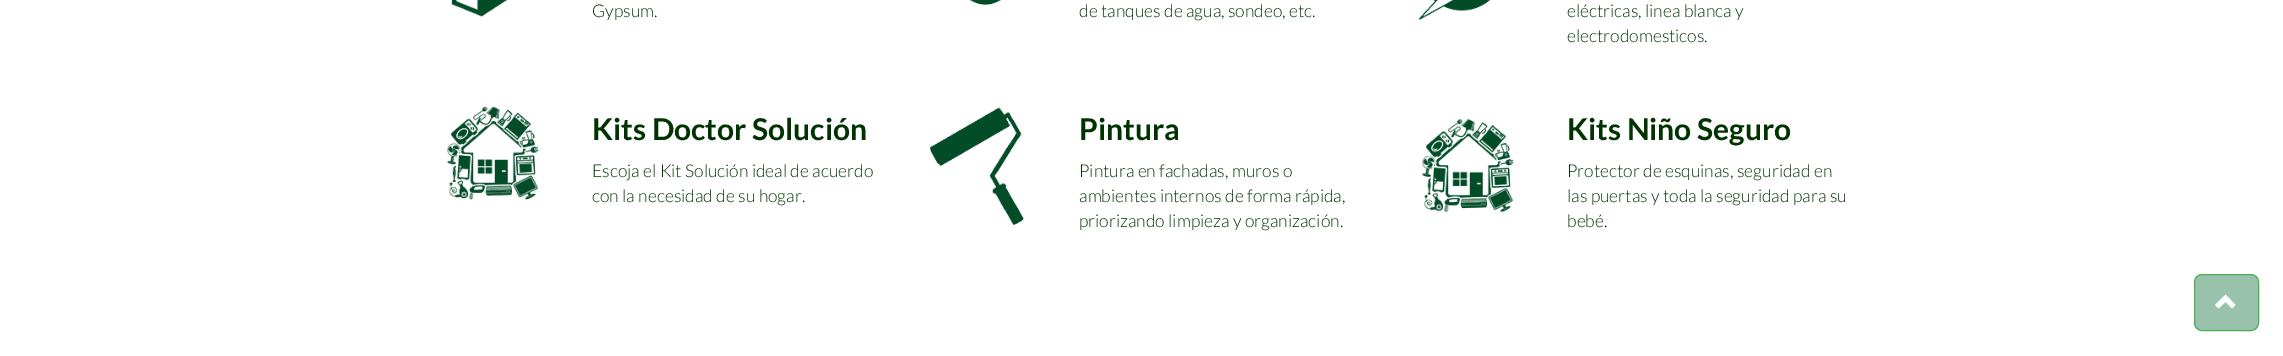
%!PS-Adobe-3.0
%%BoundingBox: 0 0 2283 356
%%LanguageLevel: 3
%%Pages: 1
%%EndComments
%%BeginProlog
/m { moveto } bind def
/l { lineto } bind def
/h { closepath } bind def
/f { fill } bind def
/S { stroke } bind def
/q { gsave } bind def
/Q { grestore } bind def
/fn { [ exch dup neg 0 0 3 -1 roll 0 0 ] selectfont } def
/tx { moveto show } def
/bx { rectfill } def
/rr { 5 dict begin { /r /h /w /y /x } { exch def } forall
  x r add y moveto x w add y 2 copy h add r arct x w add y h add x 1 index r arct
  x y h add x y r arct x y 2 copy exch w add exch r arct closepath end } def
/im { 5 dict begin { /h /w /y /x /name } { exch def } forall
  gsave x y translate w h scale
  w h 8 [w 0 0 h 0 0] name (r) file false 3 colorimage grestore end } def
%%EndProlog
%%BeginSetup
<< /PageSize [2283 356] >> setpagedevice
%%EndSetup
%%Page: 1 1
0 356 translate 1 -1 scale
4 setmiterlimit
1 setgray
0 0 2283 356 bx
(image0.raw) 451 0 57 17 im
/Lato-Light 17.5 fn
0 0.2 0 setrgbcolor
(Gypsum.) 592 17 tx
(image1.raw) 969 0 32 5 im
(de tanques de agua, sondeo, etc.) 1079 17 tx
(image2.raw) 1418 0 73 20 im
(eléctricas, linea blanca y) 1567 17 tx
(electrodomesticos.) 1567 42 tx
(image3.raw) 447 106 92 94 im
/Lato-Bold 30 fn
(Kits Doctor Solución) 592 140 tx
/Lato-Light 17.5 fn
(Escoja el Kit Solución ideal de acuerdo) 592 177 tx
(con la necesidad de su hogar.) 592 202 tx
(image4.raw) 929 107 95 118 im
/Lato-Bold 30 fn
(Pintura) 1079 140 tx
/Lato-Light 17.5 fn
(Pintura en fachadas, muros o) 1079 177 tx
(ambientes internos de forma rápida,) 1079 202 tx
(priorizando limpieza y organización.) 1079 227 tx
(image5.raw) 1422 119 92 94 im
/Lato-Bold 30 fn
(Kits Niño Seguro) 1567 140 tx
/Lato-Light 17.5 fn
(Protector de esquinas, seguridad en) 1567 177 tx
(las puertas y toda la seguridad para su) 1567 202 tx
(bebé.) 1567 227 tx
0.6 0.761 0.678 setrgbcolor
2194.5 274.5 64 56 7.5 rr q f Q
0.298 0.682 0.298 setrgbcolor
S
1 setgray
2235.5 305 m 2232 308.5 l 2225.5 302 l 2218.5 308.5 l 2215 305 l 2225.5 294.5 l h f
showpage
%%EOF
